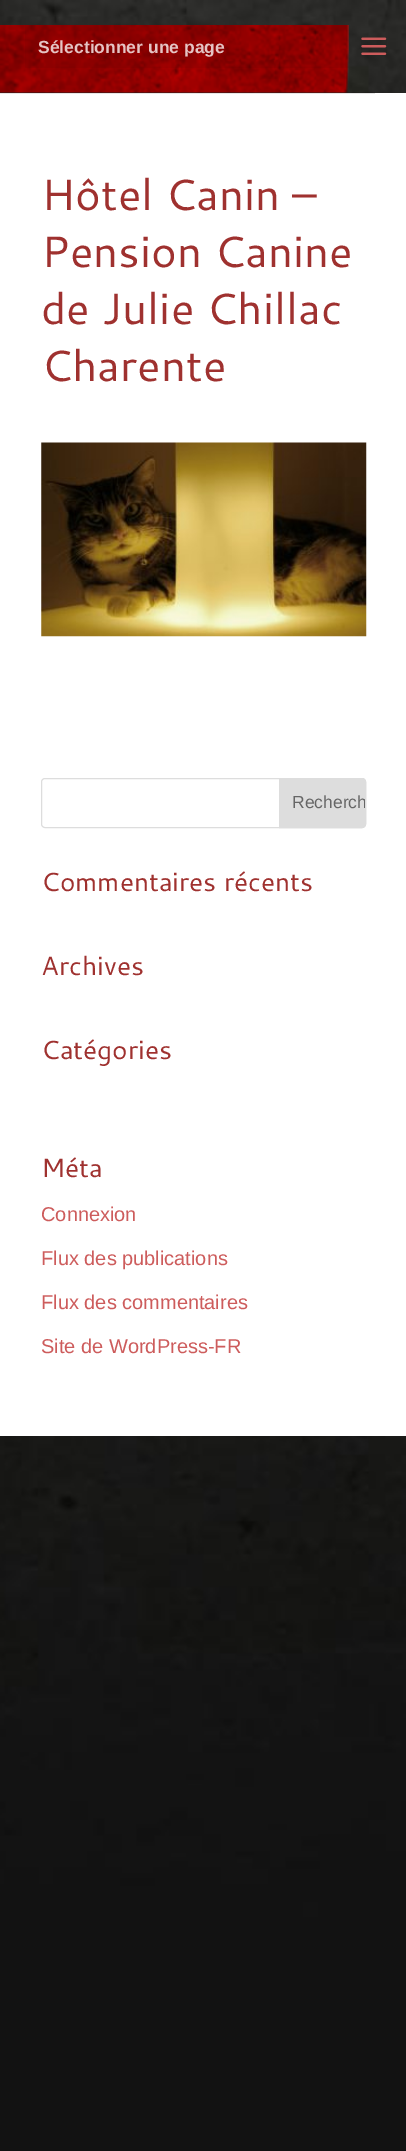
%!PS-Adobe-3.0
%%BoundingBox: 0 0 406 2151
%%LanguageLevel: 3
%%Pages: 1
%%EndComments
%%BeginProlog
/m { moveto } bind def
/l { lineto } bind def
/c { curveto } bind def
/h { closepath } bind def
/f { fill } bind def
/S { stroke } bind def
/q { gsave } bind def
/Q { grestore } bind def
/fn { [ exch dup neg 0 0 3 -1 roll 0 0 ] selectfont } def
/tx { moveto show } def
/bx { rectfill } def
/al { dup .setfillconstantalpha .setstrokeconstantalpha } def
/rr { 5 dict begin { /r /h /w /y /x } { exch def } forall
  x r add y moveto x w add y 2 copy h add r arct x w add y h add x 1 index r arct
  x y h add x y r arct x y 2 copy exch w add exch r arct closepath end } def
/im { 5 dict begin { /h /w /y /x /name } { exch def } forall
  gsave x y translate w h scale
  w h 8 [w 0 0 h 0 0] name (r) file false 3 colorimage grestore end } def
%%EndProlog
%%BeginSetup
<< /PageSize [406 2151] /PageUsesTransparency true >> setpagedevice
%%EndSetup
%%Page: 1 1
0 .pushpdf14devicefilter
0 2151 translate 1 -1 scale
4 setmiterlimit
1 setgray
0 0 406 2151 bx
(image0.raw) 0 0 406 2151 im
0 93 406 1343 bx
0.1 al
0 setgray
0 92 375 2 bx
1 al
(image1.raw) 0 25 349 68 im
0.05 al
25 25 324 43 bx
/LiberationSans-Bold 17.5 fn
1 al
0.898 0.769 0.769 setrgbcolor
(Sélectionner une page) 38 53 tx
(image2.raw) 361 37 26 18 im
/Cantarell-Regular 43.75 fn
0.624 0.192 0.184 setrgbcolor
(Hôtel Canin –) 41 210 tx
(Pension Canine) 41 267 tx
(de Julie Chillac) 41 324 tx
(Charente) 41 381 tx
(image3.raw) 41 442 326 195 im
0.867 setgray
41.5 778.5 324 49 3.5 rr S
279.5 778.5 m 362 778.5 l 364 778.5 365.5 780 365.5 782 c 365.5 824 l 365.5 826 364 827.5 362 827.5 c 279.5 827.5 l h q f Q
S
q
280 779 m 362.5 779 l 364 779 365 780 365 781.5 c 365 823.5 l 365 825 364 826 362.5 826 c 280 826 l h clip newpath
/LiberationSans-Regular 17.5 fn
0.4 setgray
(Recherch) 292 808 tx
Q
/Cantarell-Regular 26.25 fn
0.624 0.192 0.184 setrgbcolor
(Commentaires récents) 41 891 tx
(Archives) 41 975 tx
(Catégories) 41 1059 tx
(Méta) 41 1177 tx
/LiberationSans-Regular 20 fn
0.804 0.361 0.361 setrgbcolor
(Connexion) 41 1221 tx
(Flux des publications) 41 1265 tx
(Flux des commentaires) 41 1309 tx
(Site de WordPress-FR) 41 1353 tx
.poppdf14devicefilter showpage
%%EOF
